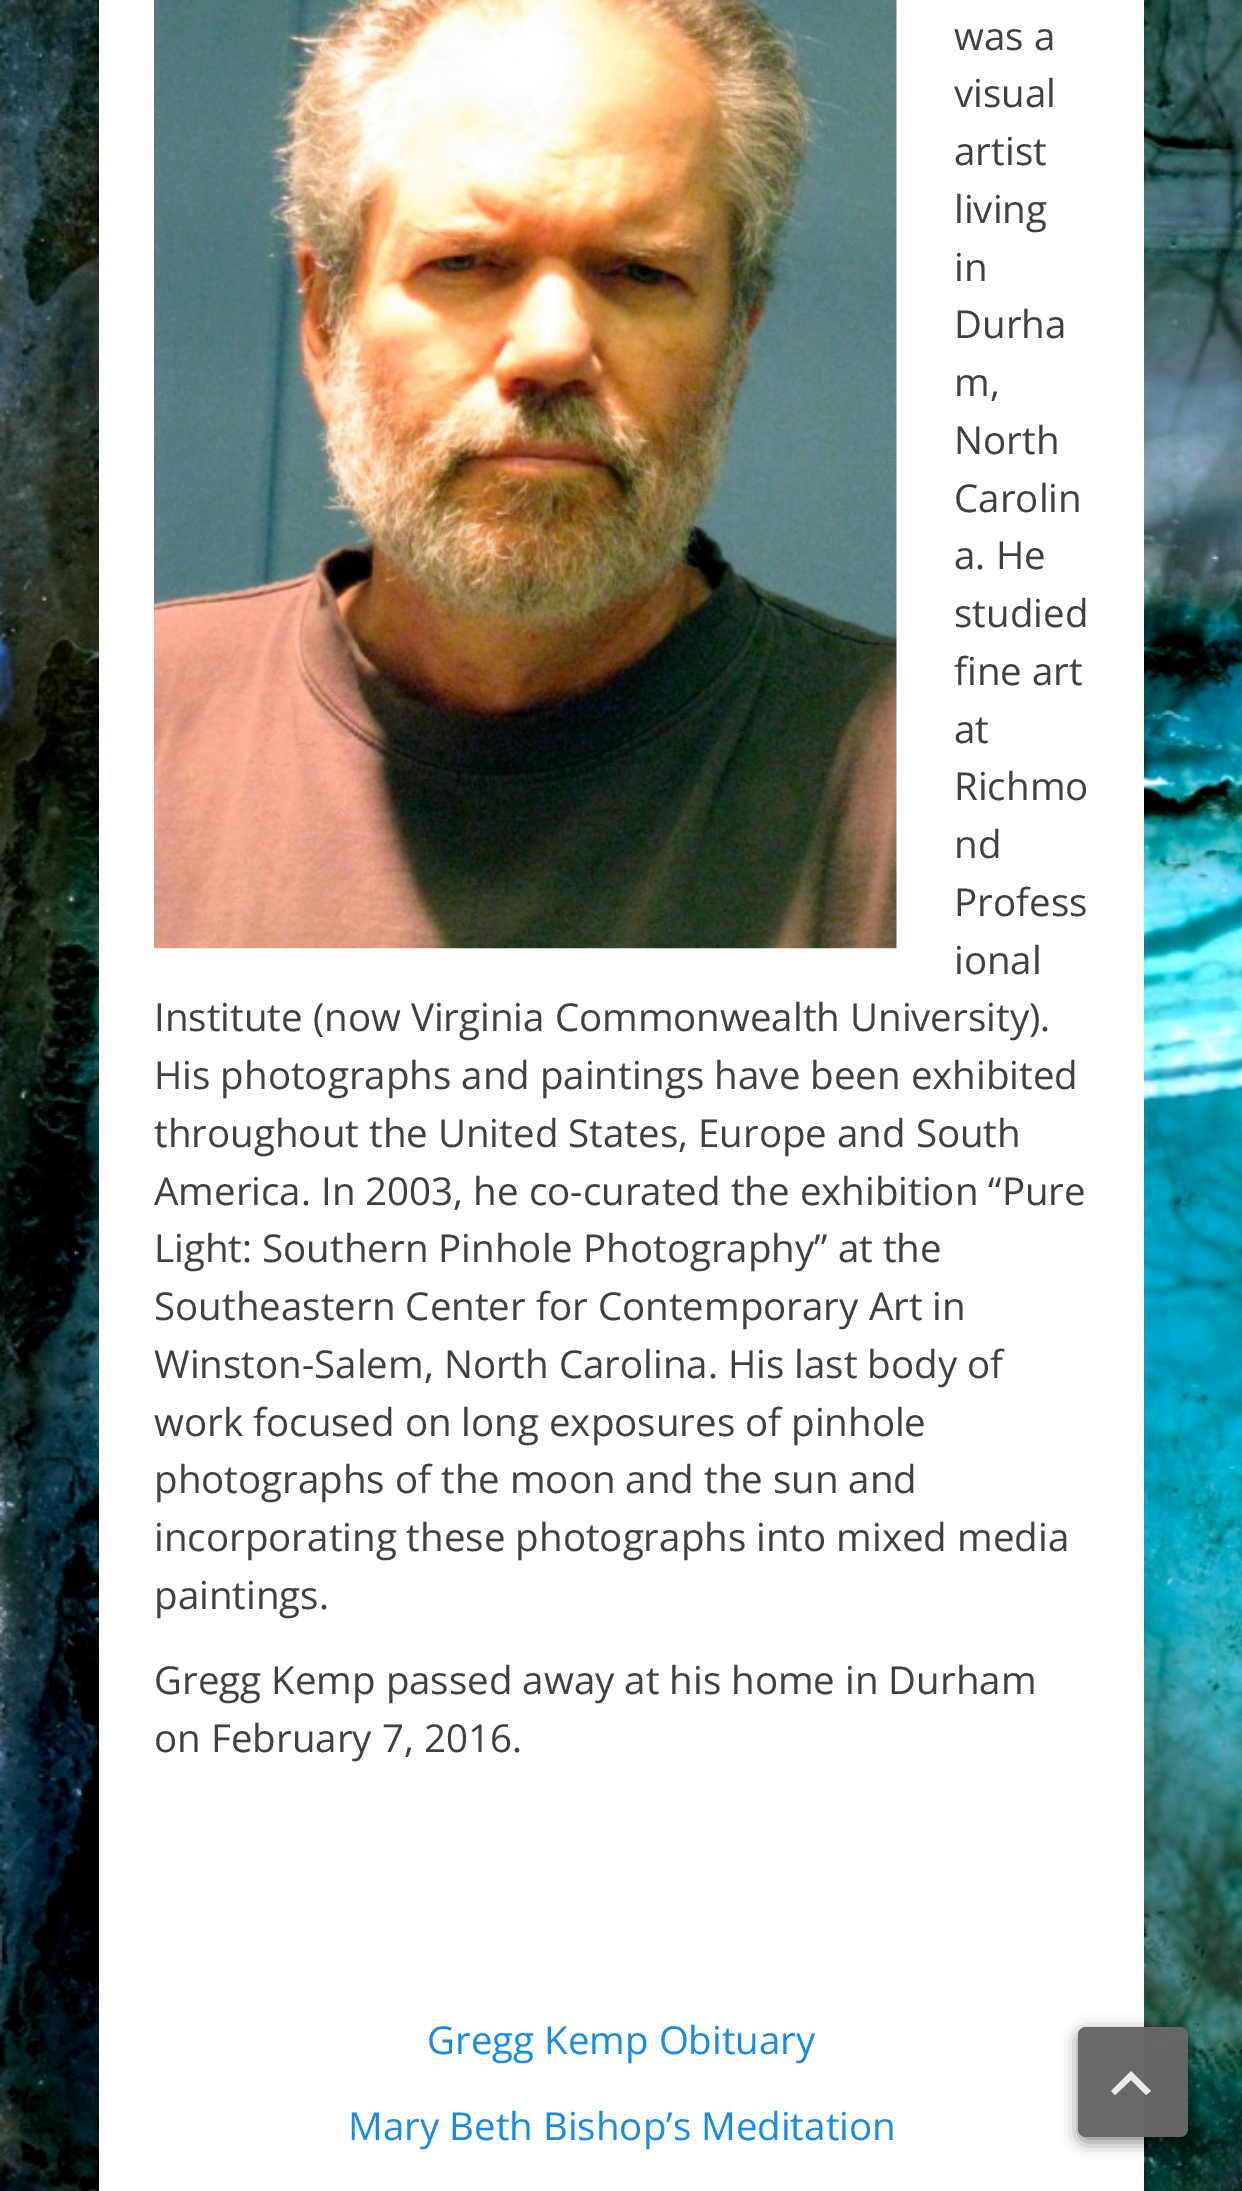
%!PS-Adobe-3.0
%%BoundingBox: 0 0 1242 2191
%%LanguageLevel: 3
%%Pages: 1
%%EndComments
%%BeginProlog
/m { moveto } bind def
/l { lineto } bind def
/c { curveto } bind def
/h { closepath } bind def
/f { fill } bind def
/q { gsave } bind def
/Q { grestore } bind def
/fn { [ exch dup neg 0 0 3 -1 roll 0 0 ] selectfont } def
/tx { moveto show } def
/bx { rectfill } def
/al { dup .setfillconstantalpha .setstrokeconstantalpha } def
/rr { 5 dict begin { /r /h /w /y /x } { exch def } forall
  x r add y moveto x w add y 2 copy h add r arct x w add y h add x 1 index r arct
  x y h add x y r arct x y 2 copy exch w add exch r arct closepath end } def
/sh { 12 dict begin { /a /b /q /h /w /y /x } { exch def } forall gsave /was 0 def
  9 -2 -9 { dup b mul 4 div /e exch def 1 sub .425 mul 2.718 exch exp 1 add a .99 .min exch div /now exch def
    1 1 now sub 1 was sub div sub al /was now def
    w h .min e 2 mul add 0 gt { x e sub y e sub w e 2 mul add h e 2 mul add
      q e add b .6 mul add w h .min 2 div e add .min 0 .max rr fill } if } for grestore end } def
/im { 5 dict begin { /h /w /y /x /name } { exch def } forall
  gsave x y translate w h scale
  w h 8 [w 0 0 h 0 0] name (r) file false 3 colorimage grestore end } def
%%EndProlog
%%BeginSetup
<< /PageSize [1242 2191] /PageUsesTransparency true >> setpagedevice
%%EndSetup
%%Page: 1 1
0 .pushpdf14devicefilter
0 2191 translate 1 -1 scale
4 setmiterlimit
1 setgray
0 0 1242 2191 bx
(image0.raw) 0 0 1242 2191 im
99 0 1045 2191 bx
(image1.raw) 154 0 743 949 im
/OpenSans-Regular 38.5 fn
0.251 setgray
(was a) 954 50 tx
(visual) 954 107 tx
(artist) 954 165 tx
(living) 954 223 tx
(in) 954 281 tx
(Durha) 954 338 tx
(m,) 954 396 tx
(North) 954 454 tx
(Carolin) 954 512 tx
(a. He) 954 569 tx
(studied) 954 627 tx
(fine art) 954 685 tx
(at) 954 743 tx
(Richmo) 954 800 tx
(nd) 954 858 tx
(Profess) 954 916 tx
(ional) 954 974 tx
(Institute \(now Virginia Commonwealth University\).) 154 1031 tx
(His photographs and paintings have been exhibited) 154 1089 tx
(throughout the United States, Europe and South) 154 1147 tx
(America. In 2003, he co-curated the exhibition “Pure) 154 1205 tx
(Light: Southern Pinhole Photography” at the) 154 1262 tx
(Southeastern Center for Contemporary Art in) 154 1320 tx
(Winston-Salem, North Carolina. His last body of) 154 1378 tx
(work focused on long exposures of pinhole) 154 1436 tx
(photographs of the moon and the sun and) 154 1493 tx
(incorporating these photographs into mixed media) 154 1551 tx
(paintings.) 154 1609 tx
(Gregg Kemp passed away at his home in Durham) 154 1694 tx
(on February 7, 2016.) 154 1752 tx
0.106 0.545 0.878 setrgbcolor
(Gregg Kemp Obituary) 427 2054 tx
(Mary Beth Bishop’s Meditation) 348 2140 tx
q
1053 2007 m 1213 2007 l 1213 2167 l 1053 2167 l h 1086 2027 m 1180 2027 l 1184.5 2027 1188 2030.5 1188 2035 c 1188 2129 l 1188 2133.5 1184.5 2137 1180 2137 c 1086 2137 l 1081.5 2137 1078 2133.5 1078 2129 c 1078 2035 l 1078 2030.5 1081.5 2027 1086 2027 c h eoclip newpath
0 setgray
1078 2032 110 110 8 8 0.49 sh
Q
0.98 al
0.4 setgray
1078 2027 110 110 8 rr f
0.933 setgray
1146 2095 m 1131 2080 l 1115 2095 l 1111 2091 l 1131 2071 l 1151 2091 l h f
.poppdf14devicefilter showpage
%%EOF
